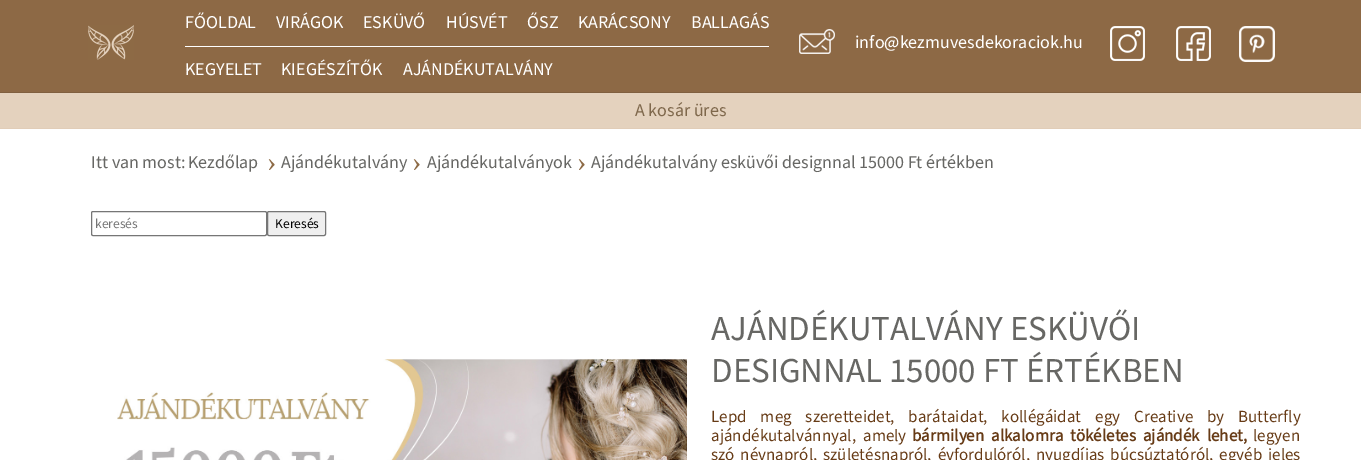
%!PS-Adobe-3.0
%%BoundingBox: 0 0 1361 460
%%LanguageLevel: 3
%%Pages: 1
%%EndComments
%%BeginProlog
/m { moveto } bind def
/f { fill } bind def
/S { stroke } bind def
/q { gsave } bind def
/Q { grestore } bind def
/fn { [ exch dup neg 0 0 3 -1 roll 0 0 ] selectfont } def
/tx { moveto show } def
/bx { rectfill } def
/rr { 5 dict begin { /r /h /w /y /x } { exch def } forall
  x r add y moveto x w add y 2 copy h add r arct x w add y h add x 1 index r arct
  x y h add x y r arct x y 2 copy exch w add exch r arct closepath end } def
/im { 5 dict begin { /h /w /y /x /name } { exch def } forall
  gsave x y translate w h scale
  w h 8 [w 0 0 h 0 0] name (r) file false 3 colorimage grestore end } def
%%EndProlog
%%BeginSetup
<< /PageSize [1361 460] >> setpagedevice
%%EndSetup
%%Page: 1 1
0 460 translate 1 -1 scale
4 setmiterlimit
1 setgray
0 0 1361 460 bx
0.553 0.412 0.271 setrgbcolor
0 0 1361 92 bx
0.502 0.376 0.251 setrgbcolor
0 92 1361 1 bx
(image0.raw) 88 25 46 35 im
1 setgray
185 46 584 1 bx
/SourceSansPro-Regular 18 fn
(FŐOLDAL) 185 28 tx
(VIRÁGOK) 276 28 tx
(ESKÜVŐ) 363 28 tx
(HÚSVÉT) 446 28 tx
(ŐSZ) 527 28 tx
(KARÁCSONY) 578 28 tx
(BALLAGÁS) 691 28 tx
(KEGYELET) 185 75 tx
(KIEGÉSZÍTŐK) 281 75 tx
(AJÁNDÉKUTALVÁNY) 403 75 tx
(image1.raw) 799 29 36 25 im
(info@kezmuvesdekoraciok.hu) 855 48 tx
(image2.raw) 1110 26 35 35 im
(image3.raw) 1176 26 35 35 im
(image4.raw) 1239 26 36 36 im
0.894 0.824 0.745 setrgbcolor
0 93 1361 35 bx
0.882 0.804 0.722 setrgbcolor
0 128 1361 1 bx
0.498 0.408 0.298 setrgbcolor
(A kosár üres) 635 116 tx
0.404 0.404 0.392 setrgbcolor
(Itt van most:) 91 168 tx
(Kezdőlap) 188 168 tx
/LiberationSerif-Regular 28 fn
0.553 0.416 0.271 setrgbcolor
(›) 267 171 tx
/SourceSansPro-Regular 18 fn
0.404 0.404 0.392 setrgbcolor
(Ajándékutalvány) 281 168 tx
/LiberationSerif-Regular 28 fn
0.553 0.416 0.271 setrgbcolor
(›) 412 171 tx
/SourceSansPro-Regular 18 fn
0.404 0.404 0.392 setrgbcolor
(Ajándékutalványok) 427 168 tx
/LiberationSerif-Regular 28 fn
0.553 0.416 0.271 setrgbcolor
(›) 577 171 tx
/SourceSansPro-Regular 18 fn
0.404 0.404 0.392 setrgbcolor
(Ajándékutalvány esküvői designnal 15000 Ft értékben) 591 168 tx
0.463 setgray
91.5 211.5 175 24 1.5 rr S
/SourceSansPro-Regular 13.5 fn
0.459 setgray
(keresés) 95 228 tx
0.937 setgray
267.5 211.5 58 24 1.5 rr q f Q
0.463 setgray
S
0 setgray
(Keresés) 275 228 tx
(image5.raw) 117 359 570 101 im
/SourceSansPro-Regular 35 fn
0.404 0.404 0.392 setrgbcolor
(AJÁNDÉKUTALVÁNY ESKÜVŐI) 711 340 tx
(DESIGNNAL 15000 FT ÉRTÉKBEN) 711 382 tx
/SourceSansPro-Regular 17 fn
0.404 0.231 0.086 setrgbcolor
711 422 m 10.5 0 32 (Lepd meg szeretteidet, barátaidat, kollégáidat egy Creative by Butterfly) widthshow
711 441 m 3.5 0 32 (ajándékutalvánnyal, amely) widthshow
/SourceSansPro-Bold 17 fn
912 441 m 3.5 0 32 (bármilyen alkalomra tökéletes ajándék lehet,) widthshow
/SourceSansPro-Regular 17 fn
(legyen) 1253 441 tx
711 460 m 2.5 0 32 (szó névnapról, születésnapról, évfordulóról, nyugdíjas búcsúztatóról, egyéb jeles) widthshow
showpage
%%EOF
